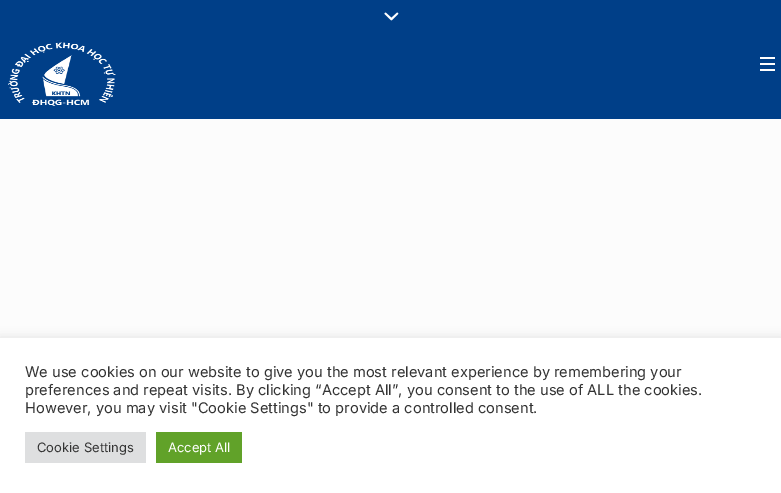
%!PS-Adobe-3.0
%%BoundingBox: 0 0 781 493
%%LanguageLevel: 3
%%Pages: 1
%%EndComments
%%BeginProlog
/fn { [ exch dup neg 0 0 3 -1 roll 0 0 ] selectfont } def
/tx { moveto show } def
/bx { rectfill } def
/al { dup .setfillconstantalpha .setstrokeconstantalpha } def
/rr { 5 dict begin { /r /h /w /y /x } { exch def } forall
  x r add y moveto x w add y 2 copy h add r arct x w add y h add x 1 index r arct
  x y h add x y r arct x y 2 copy exch w add exch r arct closepath end } def
/sh { 12 dict begin { /a /b /q /h /w /y /x } { exch def } forall gsave /was 0 def
  9 -2 -9 { dup b mul 4 div /e exch def 1 sub .425 mul 2.718 exch exp 1 add a .99 .min exch div /now exch def
    1 1 now sub 1 was sub div sub al /was now def
    w h .min e 2 mul add 0 gt { x e sub y e sub w e 2 mul add h e 2 mul add
      q e add b .6 mul add w h .min 2 div e add .min 0 .max rr fill } if } for grestore end } def
/im { 5 dict begin { /h /w /y /x /name } { exch def } forall
  gsave x y translate w h scale
  w h 8 [w 0 0 h 0 0] name (r) file false 3 colorimage grestore end } def
%%EndProlog
%%BeginSetup
<< /PageSize [781 493] /PageUsesTransparency true >> setpagedevice
%%EndSetup
%%Page: 1 1
0 .pushpdf14devicefilter
0 493 translate 1 -1 scale
4 setmiterlimit
0.988 setgray
0 0 781 493 bx
0 0.247 0.533 setrgbcolor
0 0 781 119 bx
(image0.raw) 384 12 15 9 im
(image1.raw) 8 42 108 64 im
1 setgray
760 63 15 2 bx
760 57 15 2 bx
760 69 15 2 bx
0.675 0.671 0.671 setrgbcolor
0 337 781 155 0 5 0.3 sh
1 setgray
0 338 781 155 bx
/Inter-Regular 14.65 fn
0.2 setgray
(We use cookies on our website to give you the most relevant experience by remembering your) 25 377 tx
(preferences and repeat visits. By clicking “Accept All”, you consent to the use of ALL the cookies.) 25 395 tx
(However, you may visit "Cookie Settings" to provide a controlled consent.) 25 413 tx
0.871 0.875 0.878 setrgbcolor
25 432 121 31 bx
/Inter-Regular 13 fn
0.2 setgray
(Cookie Settings) 37 452 tx
0.38 0.635 0.161 setrgbcolor
156 432 86 31 bx
1 setgray
(Accept All) 168 452 tx
.poppdf14devicefilter showpage
%%EOF
